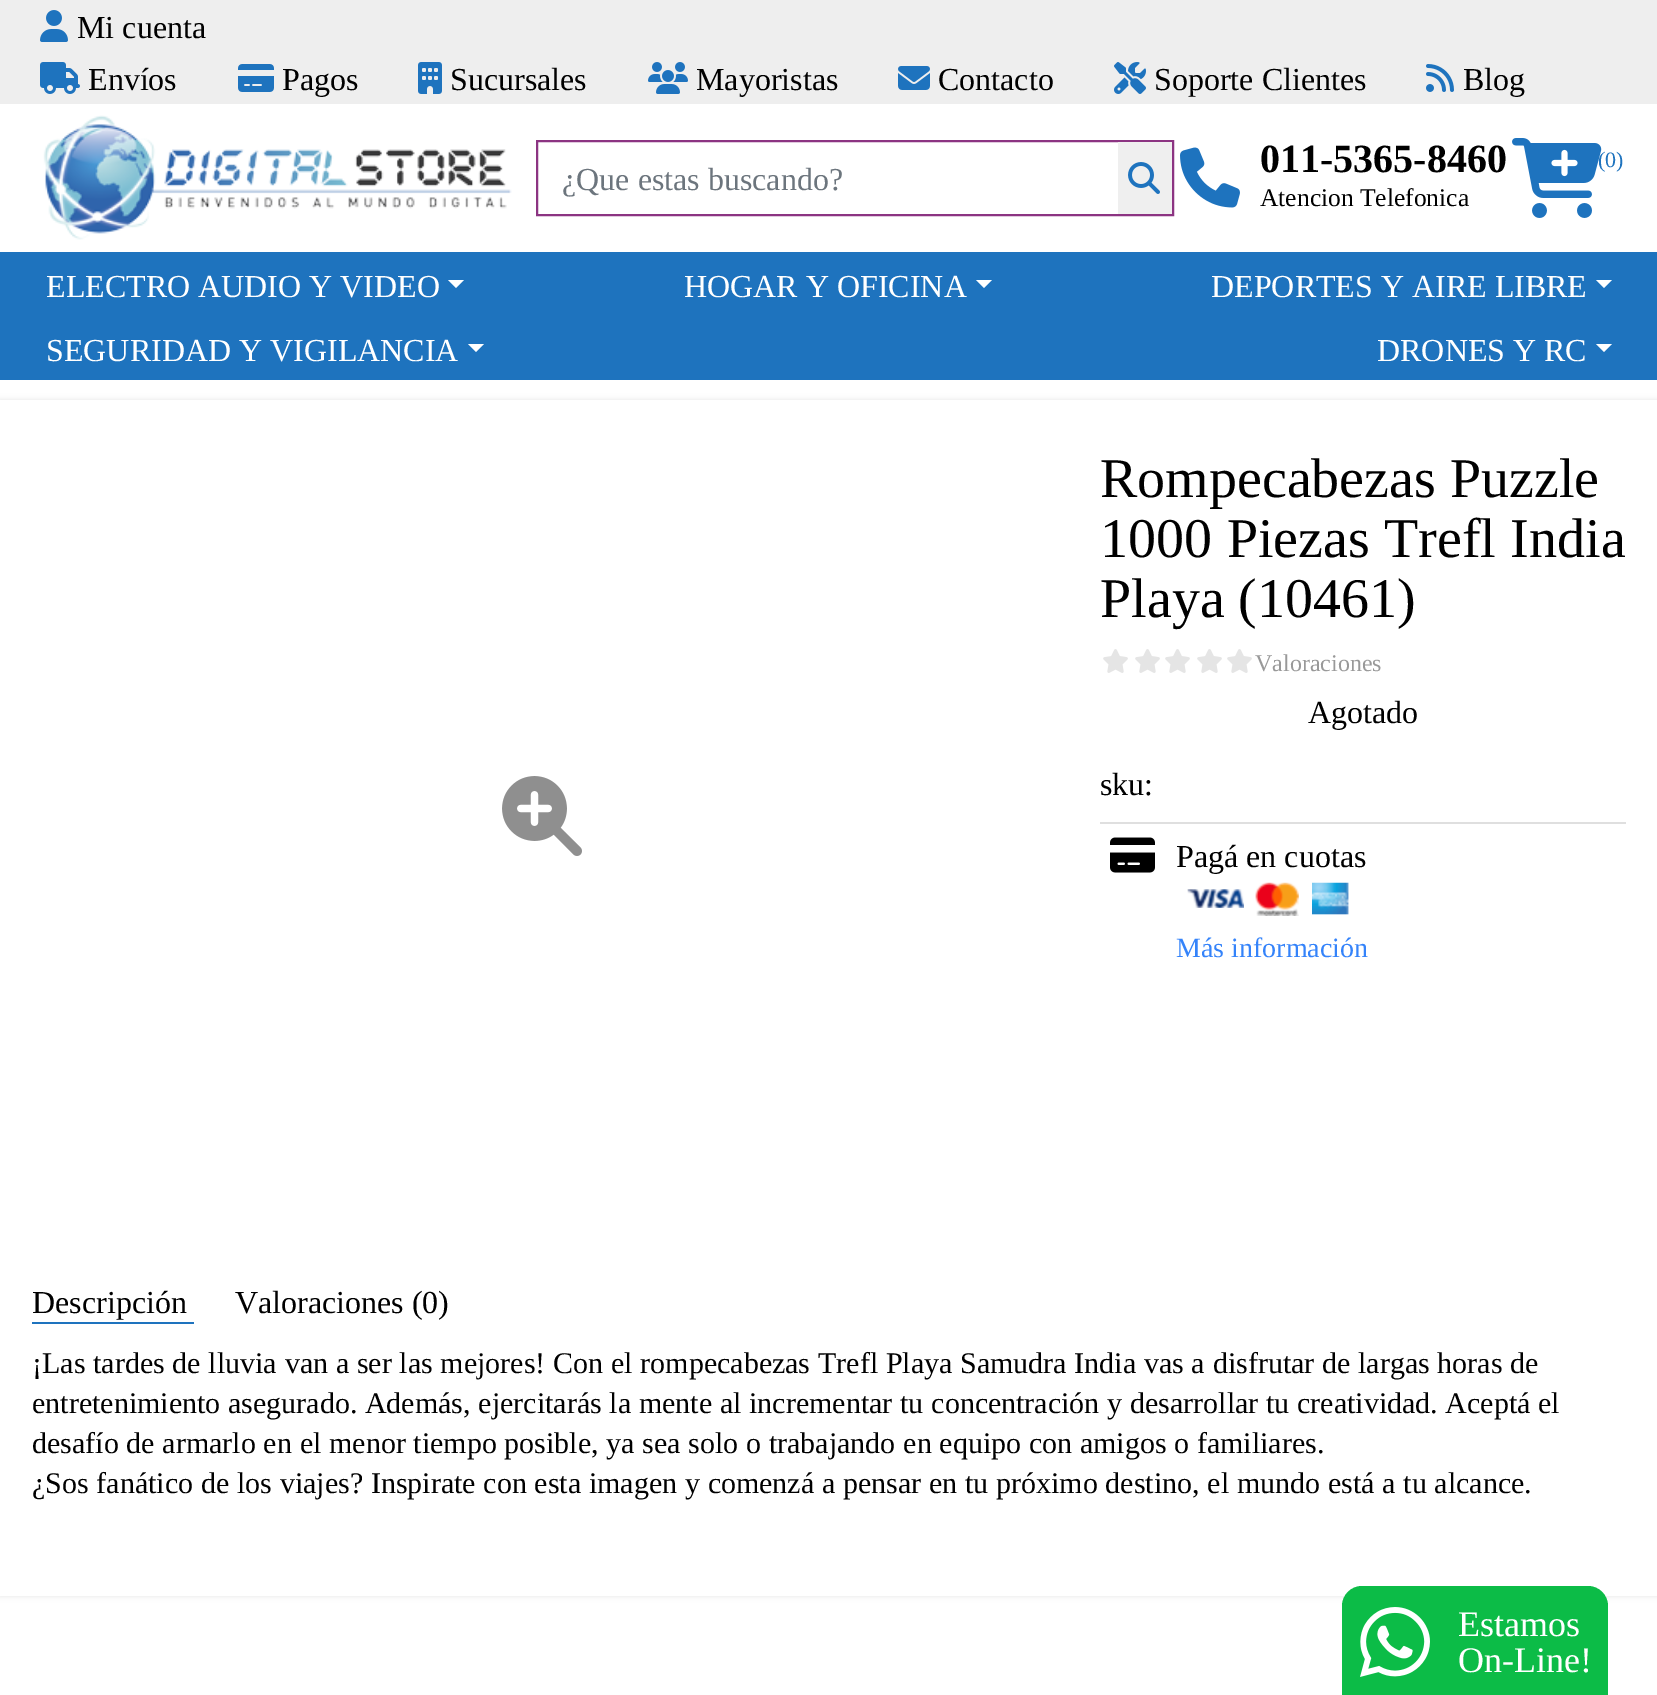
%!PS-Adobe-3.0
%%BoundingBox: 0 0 1657 1695
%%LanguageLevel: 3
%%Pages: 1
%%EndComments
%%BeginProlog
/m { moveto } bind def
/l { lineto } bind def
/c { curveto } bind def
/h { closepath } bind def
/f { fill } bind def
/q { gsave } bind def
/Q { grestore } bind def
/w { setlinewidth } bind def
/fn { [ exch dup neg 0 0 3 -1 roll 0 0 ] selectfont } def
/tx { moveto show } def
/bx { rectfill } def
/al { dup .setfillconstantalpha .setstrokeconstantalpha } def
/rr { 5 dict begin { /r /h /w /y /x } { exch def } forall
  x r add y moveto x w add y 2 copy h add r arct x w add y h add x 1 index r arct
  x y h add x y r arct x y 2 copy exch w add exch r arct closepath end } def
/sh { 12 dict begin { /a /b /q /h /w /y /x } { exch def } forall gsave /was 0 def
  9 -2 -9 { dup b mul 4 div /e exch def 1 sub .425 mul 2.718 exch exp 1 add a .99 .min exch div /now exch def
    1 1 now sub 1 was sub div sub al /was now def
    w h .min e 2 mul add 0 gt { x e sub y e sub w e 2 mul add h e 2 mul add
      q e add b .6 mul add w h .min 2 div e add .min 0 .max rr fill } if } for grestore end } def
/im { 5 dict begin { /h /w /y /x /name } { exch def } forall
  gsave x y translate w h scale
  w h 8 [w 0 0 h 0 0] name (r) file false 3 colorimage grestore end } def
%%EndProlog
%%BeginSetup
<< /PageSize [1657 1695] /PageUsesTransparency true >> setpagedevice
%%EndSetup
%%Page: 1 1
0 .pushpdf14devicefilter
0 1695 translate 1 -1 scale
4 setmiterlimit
0.933 setgray
0 0 1657 1695 bx
(image0.raw) 40 10 28 32 im
/LiberationSerif-Regular 32 fn
0 setgray
(Mi cuenta) 77 38 tx
(image1.raw) 40 62 40 32 im
(Envíos) 88 90 tx
(image2.raw) 238 64 36 28 im
(Pagos) 282 90 tx
(image3.raw) 418 62 24 32 im
(Sucursales) 450 90 tx
(image4.raw) 648 62 40 32 im
(Mayoristas) 696 90 tx
(image5.raw) 898 66 32 24 im
(Contacto) 938 90 tx
(image6.raw) 1114 62 32 32 im
(Soporte Clientes) 1154 90 tx
(image7.raw) 1426 64 28 28 im
(Blog) 1463 90 tx
1 setgray
0 104 1657 148 bx
(image8.raw) 43 115 469 125 im
(image9.raw) 1180 147 60 61 im
/LiberationSerif-Bold 40 fn
0 setgray
(011-5365-8460) 1260 172 tx
/LiberationSerif-Regular 25.5 fn
(Atencion Telefonica) 1260 206 tx
(image10.raw) 1512 138 90 80 im
/LiberationSerif-Regular 22 fn
0.118 0.451 0.745 setrgbcolor
(\(0\)) 1598 167 tx
0.549 0.204 0.51 setrgbcolor
2 w
537 141 636 74 rectstroke
/LiberationSerif-Regular 32 fn
0.424 0.459 0.49 setrgbcolor
(¿Que estas buscando?) 562 190 tx
0.937 setgray
1118 142 54 72 bx
(image11.raw) 1128 162 32 32 im
0.118 0.451 0.745 setrgbcolor
0 252 1657 128 bx
1 setgray
(ELECTRO AUDIO Y VIDEO) 46 297 tx
448 280 m 464 280 l 456 288 l h f
(HOGAR Y OFICINA) 684 297 tx
976 280 m 992 280 l 984 288 l h f
(DEPORTES Y AIRE LIBRE) 1211 297 tx
1596 280 m 1612 280 l 1604 288 l h f
(SEGURIDAD Y VIGILANCIA) 46 361 tx
468 344 m 484 344 l 476 352 l h f
(DRONES Y RC) 1377 361 tx
1596 344 m 1612 344 l 1604 352 l h f
0 380 1657 1315 bx
q
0 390 m 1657 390 l 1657 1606 l 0 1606 l h 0 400 m 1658 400 l 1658 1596 l 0 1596 l h eoclip newpath
0 setgray
0 400 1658 1196 0 3 0.1 sh
Q
(image12.raw) 502 776 80 80 im
/LiberationSerif-Regular 56 fn
0 setgray
(Rompecabezas Puzzle) 1100 497 tx
1100 557 m 0.5 0 32 (1000 Piezas Trefl India) widthshow
(Playa \(10461\)) 1100 617 tx
(image13.raw) 1103 649 25 24 im
(image13.raw) 1135 649 25 24 im
(image13.raw) 1165 649 25 24 im
(image13.raw) 1197 649 25 24 im
(image13.raw) 1227 649 25 24 im
/LiberationSerif-Regular 24 fn
0.6 setgray
(Valoraciones) 1255 671 tx
/LiberationSerif-Regular 32 fn
0 setgray
(Agotado) 1308 723 tx
(sku:) 1100 795 tx
0.875 setgray
1100 822 526 2 bx
(image14.raw) 1110 837 45 36 im
0 setgray
(Pagá en cuotas) 1176 867 tx
(image15.raw) 1187 882 162 34 im
/LiberationSerif-Regular 28 fn
0.204 0.514 0.98 setrgbcolor
(Más información) 1176 957 tx
/LiberationSerif-Regular 32 fn
0 setgray
(Descripción) 32 1313 tx
0.118 0.451 0.745 setrgbcolor
32 1322 162 2 bx
0 setgray
(Valoraciones \(0\)) 235 1313 tx
/LiberationSerif-Regular 30 fn
32 1373 m 0.25 0 32 (¡Las tardes de lluvia van a ser las mejores! Con el rompecabezas Trefl Playa Samudra India vas a disfrutar de largas horas de) widthshow
32 1413 m 0.25 0 32 (entretenimiento asegurado. Además, ejercitarás la mente al incrementar tu concentración y desarrollar tu creatividad. Aceptá el) widthshow
32 1453 m 0.25 0 32 (desafío de armarlo en el menor tiempo posible, ya sea solo o trabajando en equipo con amigos o familiares.) widthshow
32 1493 m 0.25 0 32 (¿Sos fanático de los viajes? Inspirate con esta imagen y comenzá a pensar en tu próximo destino, el mundo está a tu alcance.) widthshow
0.047 0.737 0.278 setrgbcolor
1362 1586 m 1588 1586 l 1599 1586 1608 1595 1608 1606 c 1608 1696 l 1342 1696 l 1342 1606 l 1342 1595 1351 1586 1362 1586 c h f
(image16.raw) 1360 1607 70 70 im
/LiberationSerif-Regular 36 fn
1 setgray
(Estamos) 1458 1636 tx
(On-Line!) 1458 1672 tx
.poppdf14devicefilter showpage
%%EOF
